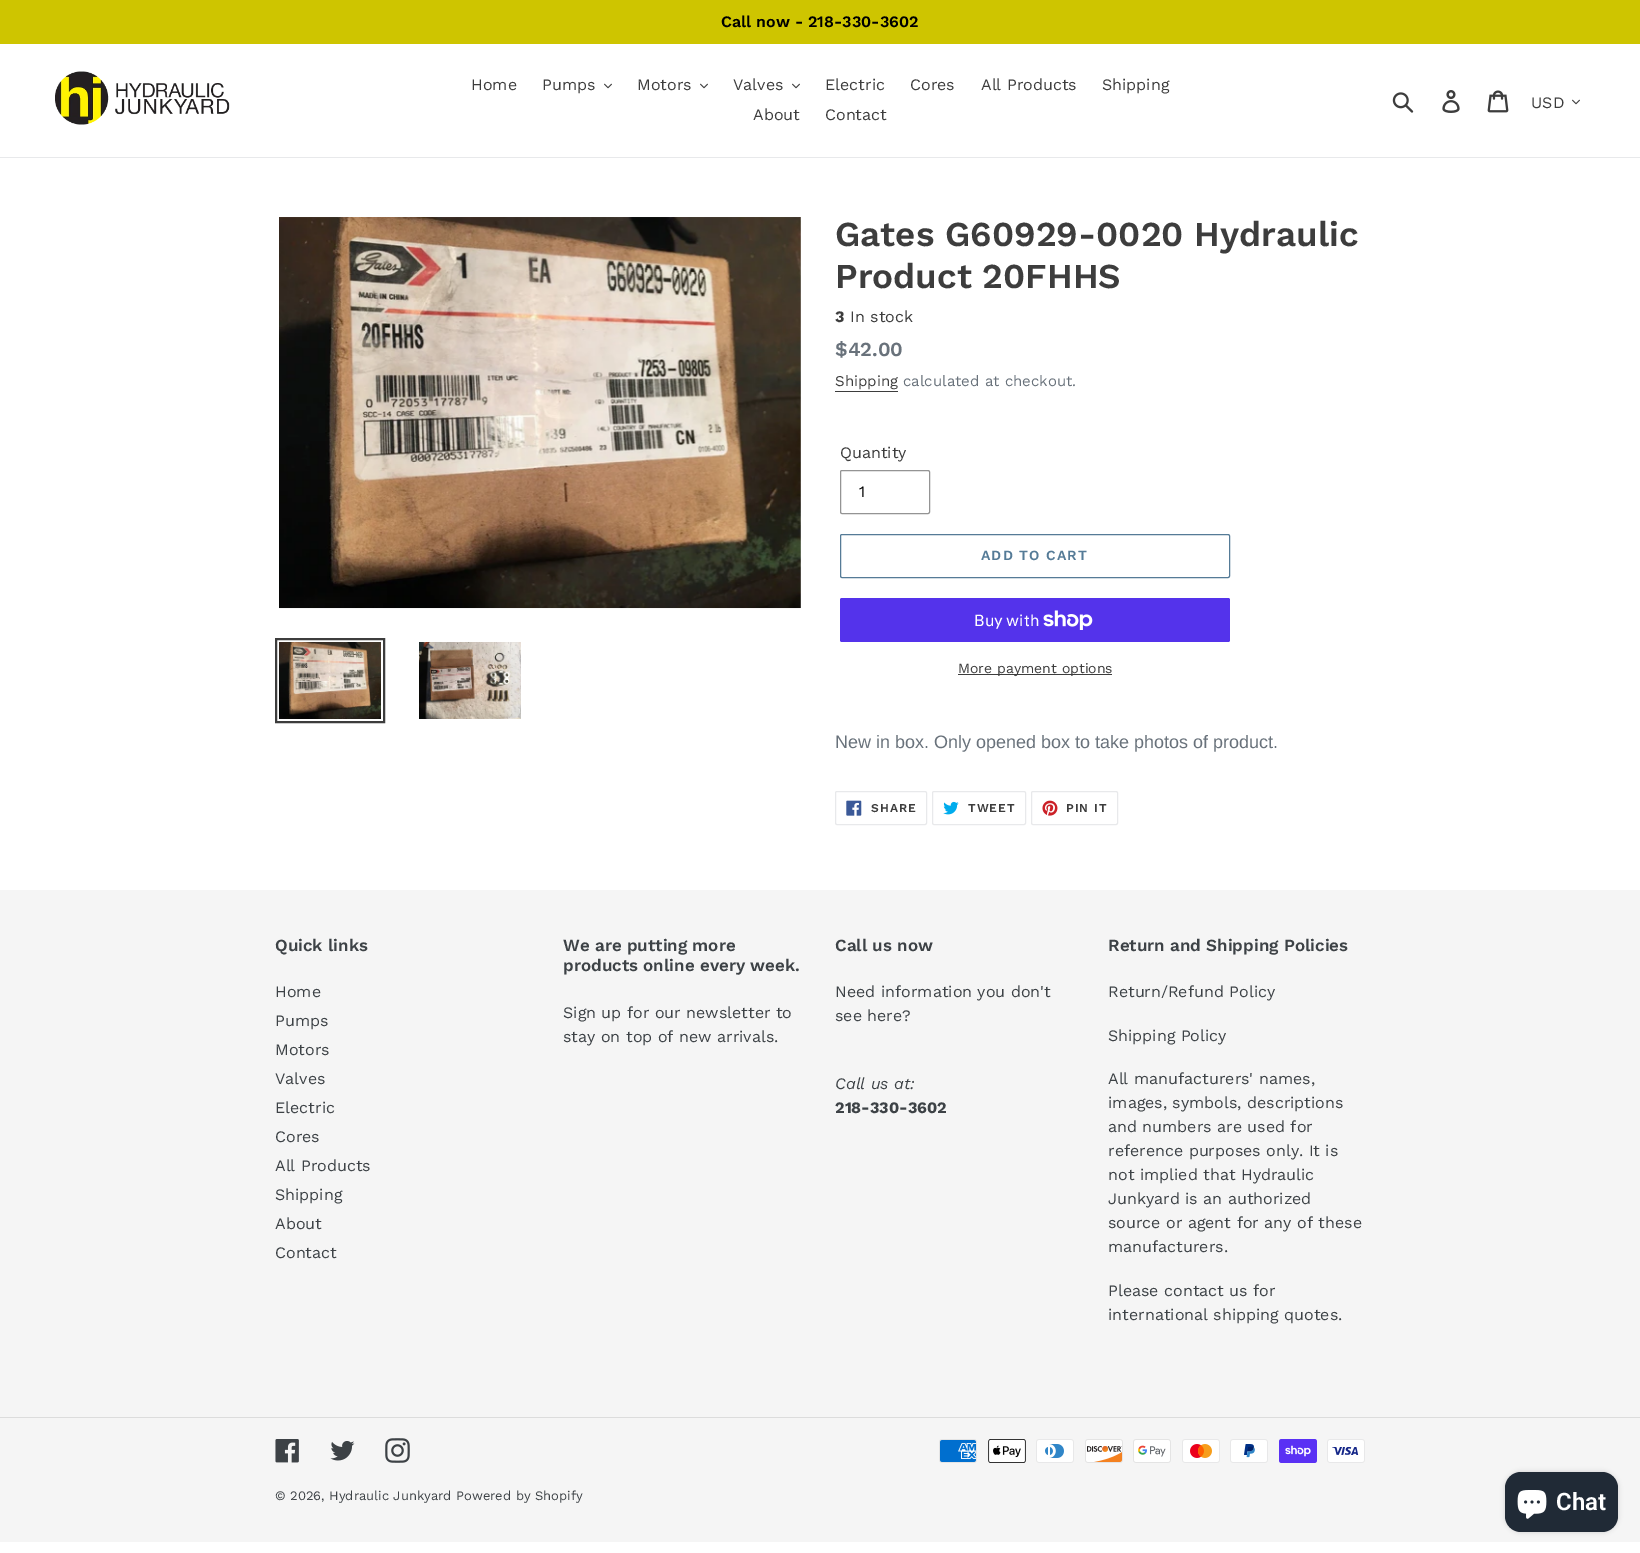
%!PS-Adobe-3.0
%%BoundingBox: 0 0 1640 1553
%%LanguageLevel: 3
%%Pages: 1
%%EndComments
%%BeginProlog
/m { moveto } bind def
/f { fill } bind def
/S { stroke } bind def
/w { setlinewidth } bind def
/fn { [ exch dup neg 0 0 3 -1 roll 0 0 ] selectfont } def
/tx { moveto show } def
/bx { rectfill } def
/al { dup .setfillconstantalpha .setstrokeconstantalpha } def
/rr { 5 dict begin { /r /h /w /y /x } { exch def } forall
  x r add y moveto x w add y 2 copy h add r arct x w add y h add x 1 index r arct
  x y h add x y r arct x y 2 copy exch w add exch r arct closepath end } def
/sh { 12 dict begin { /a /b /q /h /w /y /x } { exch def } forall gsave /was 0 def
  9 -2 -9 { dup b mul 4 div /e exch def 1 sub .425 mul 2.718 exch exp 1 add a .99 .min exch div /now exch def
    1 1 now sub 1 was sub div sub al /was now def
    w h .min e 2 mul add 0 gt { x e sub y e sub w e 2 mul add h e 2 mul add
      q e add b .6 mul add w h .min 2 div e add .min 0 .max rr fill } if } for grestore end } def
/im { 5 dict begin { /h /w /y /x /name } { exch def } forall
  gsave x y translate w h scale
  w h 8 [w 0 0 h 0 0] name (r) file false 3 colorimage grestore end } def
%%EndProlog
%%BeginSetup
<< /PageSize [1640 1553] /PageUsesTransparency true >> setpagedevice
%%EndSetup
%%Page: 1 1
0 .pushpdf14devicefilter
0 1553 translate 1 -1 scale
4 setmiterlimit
1 setgray
0 0 1640 1553 bx
0.808 0.773 0 setrgbcolor
0 0 1640 44 bx
/WorkSans-SemiBold 16 fn
0 setgray
(Call now - 218-330-3602) 721 27 tx
0.91 0.914 0.922 setrgbcolor
0 157 1640 1 bx
(image0.raw) 55 71 175 54 im
/WorkSans-Regular 16 fn
0.239 setgray
(Home) 471 90 tx
(Pumps) 542 90 tx
(image1.raw) 604 83 8 6 im
(Motors) 637 90 tx
(image1.raw) 700 83 8 6 im
(Valves) 733 90 tx
(image1.raw) 792 83 8 6 im
(Electric) 825 90 tx
(Cores) 910 90 tx
(All Products) 981 90 tx
(Shipping) 1102 90 tx
(About) 753 120 tx
(Contact) 825 120 tx
(image2.raw) 1392 92 22 21 im
(image3.raw) 1442 90 18 23 im
(image4.raw) 1487 90 22 23 im
(USD) 1531 108 tx
(image1.raw) 1572 99 8 6 im
(image5.raw) 279 217 522 392 im
2 w
276 639 108 83 rectstroke
(image6.raw) 279 642 102 77 im
(image7.raw) 419 642 102 77 im
/WorkSans-SemiBold 35 fn
(Gates G60929-0020 Hydraulic) 835 246 tx
(Product 20FHHS) 835 288 tx
/WorkSans-Bold 16 fn
(3) 835 322 tx
/WorkSans-Regular 16 fn
(In stock) 850 322 tx
/WorkSans-SemiBold 20 fn
0.412 0.447 0.482 setrgbcolor
($42.00) 835 356 tx
/WorkSans-Regular 15 fn
0.239 setgray
(Shipping) 835 386 tx
835 391 63 1 bx
0.412 0.447 0.482 setrgbcolor
(calculated at checkout.) 903 386 tx
/WorkSans-Regular 16 fn
0.239 setgray
(Quantity) 840 458 tx
0.58 setgray
1 w
840.5 470.5 89 43 1.5 rr S
0 setgray
(1) 859 497 tx
0.333 0.482 0.592 setrgbcolor
840.5 534.5 389 43 1.5 rr S
/WorkSans-SemiBold 14 fn
981 560 m 1.1 0 (ADD TO CART) ashow
0.329 0.2 0.922 setrgbcolor
840 598 390 44 2 rr f
/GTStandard-Regular 16 fn
1 setgray
(Buy with) 974 626 tx
(image8.raw) 1043 610 50 20 im
0.239 setgray
958 674 154 1 bx
/WorkSans-Regular 14 fn
(More payment options) 958 673 tx
/LiberationSans-Regular 18 fn
0.412 0.447 0.482 setrgbcolor
(New in box. Only opened box to take photos of product.) 835 748 tx
0.91 0.914 0.922 setrgbcolor
835.5 791.5 91 33 1.5 rr S
(image9.raw) 846 800 16 16 im
/WorkSans-SemiBold 12 fn
0.239 setgray
871 812 m 1 0 (SHARE) ashow
0.91 0.914 0.922 setrgbcolor
932.5 791.5 93 33 1.5 rr S
(image10.raw) 943 801 16 14 im
0.239 setgray
968 812 m 1 0 (TWEET) ashow
0.91 0.914 0.922 setrgbcolor
1031.5 791.5 86 33 1.5 rr S
(image11.raw) 1042 800 16 16 im
0.239 setgray
1066 812 m 1 0 (PIN IT) ashow
0.961 setgray
0 890 1640 652 bx
/WorkSans-SemiBold 17 fn
0.239 0.259 0.275 setrgbcolor
(Quick links) 275 951 tx
/WorkSans-Regular 16 fn
(Home) 275 997 tx
(Pumps) 275 1026 tx
(Motors) 275 1055 tx
(Valves) 275 1084 tx
(Electric) 275 1113 tx
(Cores) 275 1142 tx
(All Products) 275 1171 tx
(Shipping) 275 1200 tx
(About) 275 1229 tx
(Contact) 275 1258 tx
/WorkSans-SemiBold 17 fn
(We are putting more) 563 951 tx
(products online every week.) 563 971 tx
/WorkSans-Regular 16 fn
(Sign up for our newsletter to) 563 1018 tx
(stay on top of new arrivals.) 563 1042 tx
/WorkSans-SemiBold 17 fn
(Call us now) 835 951 tx
/WorkSans-Regular 16 fn
(Need information you don't) 835 997 tx
(see here?) 835 1021 tx
/WorkSans-Italic 16 fn
(Call us at:) 835 1089 tx
/WorkSans-Bold 16 fn
(218-330-3602) 835 1113 tx
/WorkSans-SemiBold 17 fn
(Return and Shipping Policies) 1108 951 tx
/WorkSans-Regular 16 fn
(Return/Refund Policy) 1108 997 tx
(Shipping Policy) 1108 1041 tx
(All manufacturers' names,) 1108 1084 tx
(images, symbols, descriptions) 1108 1108 tx
(and numbers are used for) 1108 1132 tx
(reference purposes only. It is) 1108 1156 tx
(not implied that Hydraulic) 1108 1180 tx
(Junkyard is an authorized) 1108 1204 tx
(source or agent for any of these) 1108 1228 tx
(manufacturers.) 1108 1252 tx
(Please contact us for) 1108 1296 tx
(international shipping quotes.) 1108 1320 tx
0.863 setgray
0 1417 1640 1 bx
(image12.raw) 275 1439 24 24 im
(image13.raw) 330 1441 25 20 im
(image14.raw) 385 1438 25 25 im
(image15.raw) 939 1439 38 24 im
(image16.raw) 988 1439 38 24 im
(image17.raw) 1036 1439 38 24 im
(image18.raw) 1085 1439 38 24 im
(image19.raw) 1133 1439 38 24 im
(image20.raw) 1182 1439 38 24 im
(image21.raw) 1230 1439 38 24 im
(image22.raw) 1279 1439 38 24 im
(image23.raw) 1327 1439 38 24 im
/WorkSans-Regular 13 fn
0.239 0.259 0.275 setrgbcolor
(© 2026, Hydraulic Junkyard Powered by Shopify) 275 1500 tx
0 setgray
1505 1472 113 60 16 2.5 0.15 sh
0.125 0.165 0.212 setrgbcolor
1505 1472 113 60 16 rr f
(image24.raw) 1517 1490 30 29 im
/Roboto-SemiBold 24 fn
1 setgray
(Chat) 1556 1510 tx
.poppdf14devicefilter showpage
%%EOF
